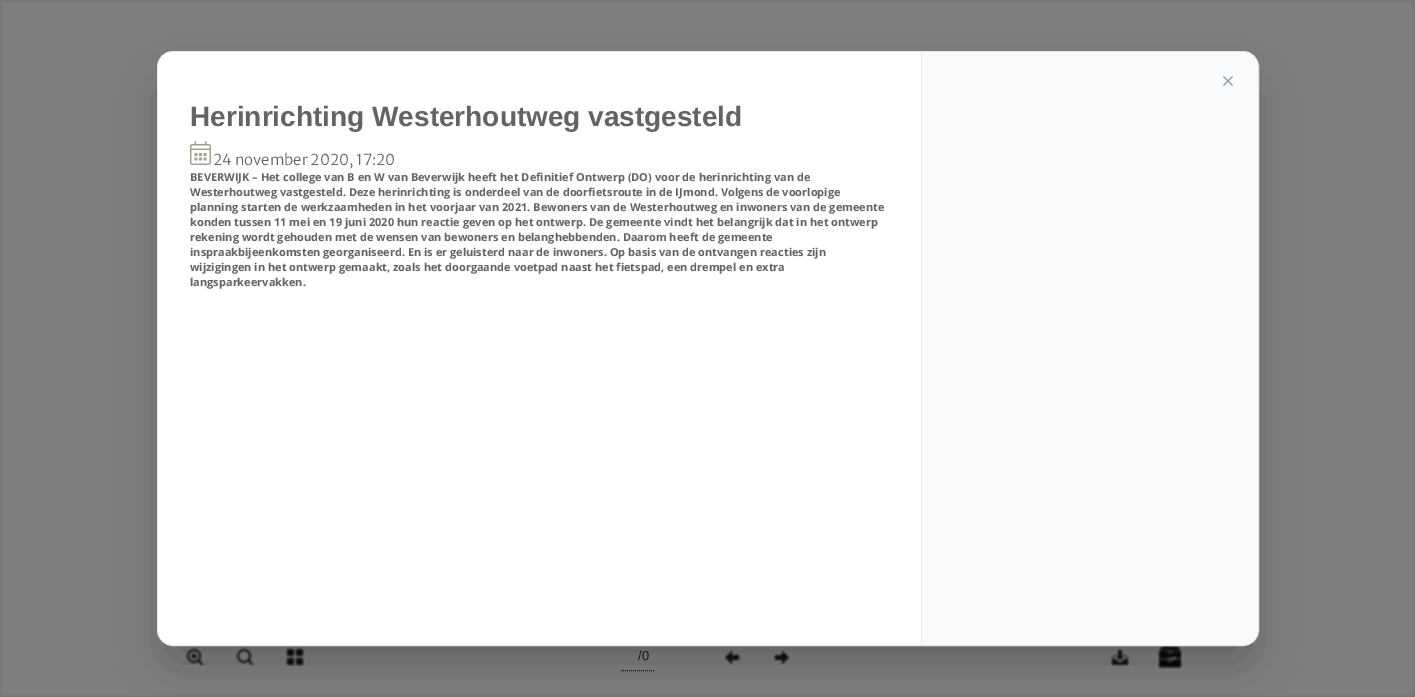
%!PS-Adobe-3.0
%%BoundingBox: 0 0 1415 697
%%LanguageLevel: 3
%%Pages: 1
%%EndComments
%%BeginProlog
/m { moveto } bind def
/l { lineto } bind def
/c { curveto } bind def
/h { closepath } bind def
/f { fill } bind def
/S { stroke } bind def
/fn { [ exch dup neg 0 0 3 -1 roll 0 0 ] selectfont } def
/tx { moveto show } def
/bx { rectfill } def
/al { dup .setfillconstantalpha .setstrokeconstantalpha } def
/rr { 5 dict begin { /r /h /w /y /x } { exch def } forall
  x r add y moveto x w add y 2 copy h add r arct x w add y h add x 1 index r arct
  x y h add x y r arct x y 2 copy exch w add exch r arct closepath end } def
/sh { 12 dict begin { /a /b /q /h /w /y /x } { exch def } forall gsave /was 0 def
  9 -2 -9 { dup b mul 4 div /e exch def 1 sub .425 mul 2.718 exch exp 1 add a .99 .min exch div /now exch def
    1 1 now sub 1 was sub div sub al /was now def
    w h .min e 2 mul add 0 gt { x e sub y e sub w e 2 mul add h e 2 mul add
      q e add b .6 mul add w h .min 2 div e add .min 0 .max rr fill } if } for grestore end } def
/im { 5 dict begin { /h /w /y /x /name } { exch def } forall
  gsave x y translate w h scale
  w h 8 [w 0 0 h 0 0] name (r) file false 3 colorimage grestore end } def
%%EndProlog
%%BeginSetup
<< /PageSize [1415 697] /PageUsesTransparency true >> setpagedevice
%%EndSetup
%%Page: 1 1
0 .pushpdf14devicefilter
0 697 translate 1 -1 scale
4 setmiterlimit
1 setgray
0 0 1415 697 bx
0.098 setgray
0 0 1415 697 0 1 1 sh
0.502 setgray
0 0 1415 697 0 1 1 sh
(image1.raw) 185 647 20 20 im
(image2.raw) 235 647 20 20 im
(image3.raw) 285 647 20 20 im
0.059 setgray
[1 1] 0 setdash
621 670.5 m 655 670.5 l S
(image4.raw) 723 649 18 17 im
(image5.raw) 773 649 18 17 im
(image6.raw) 1110 648 20 19 im
(image7.raw) 1158 646 24 23 im
0 setgray
169 88 1078 571 4 25 0.25 sh
0.898 0.906 0.922 setrgbcolor
[] 0 setdash
157.5 51.5 1101 594 15.5 rr S
0.976 0.98 0.984 setrgbcolor
921 52 m 1243 52 l 1251.5 52 1258 58.5 1258 67 c 1258 630 l 1258 638.5 1251.5 645 1243 645 c 921 645 l h f
0.898 0.906 0.922 setrgbcolor
921 52 1 593 bx
/LiberationSans-Regular 24 fn
0.612 0.639 0.686 setrgbcolor
(×) 1221 89 tx
1 setgray
173 52 m 921 52 l 921 645 l 173 645 l 164.5 645 158 638.5 158 630 c 158 67 l 158 58.5 164.5 52 173 52 c h f
/LiberationSans-Bold 28 fn
0.388 setgray
(Herinrichting Westerhoutweg vastgesteld) 190 126 tx
(image0.raw) 190 141 21 24 im
/MerriweatherSans-Light 15 fn
(24 november 2020, 17:20) 213 165 tx
/OpenSans-Bold 11 fn
(BEVERWIJK – Het college van B en W van Beverwijk heeft het Definitief Ontwerp \(DO\) voor de herinrichting van de) 190 181 tx
(Westerhoutweg vastgesteld. Deze herinrichting is onderdeel van de doorfietsroute in de IJmond. Volgens de voorlopige) 190 196 tx
(planning starten de werkzaamheden in het voorjaar van 2021. Bewoners van de Westerhoutweg en inwoners van de gemeente) 190 211 tx
(konden tussen 11 mei en 19 juni 2020 hun reactie geven op het ontwerp. De gemeente vindt het belangrijk dat in het ontwerp) 190 226 tx
(rekening wordt gehouden met de wensen van bewoners en belanghebbenden. Daarom heeft de gemeente) 190 241 tx
(inspraakbijeenkomsten georganiseerd. En is er geluisterd naar de inwoners. Op basis van de ontvangen reacties zijn) 190 256 tx
(wijzigingen in het ontwerp gemaakt, zoals het doorgaande voetpad naast het fietspad, een drempel en extra) 190 271 tx
(langsparkeervakken.) 190 286 tx
/LiberationSans-Regular 13 fn
0.059 setgray
(/0) 638 660 tx
.poppdf14devicefilter showpage
%%EOF
